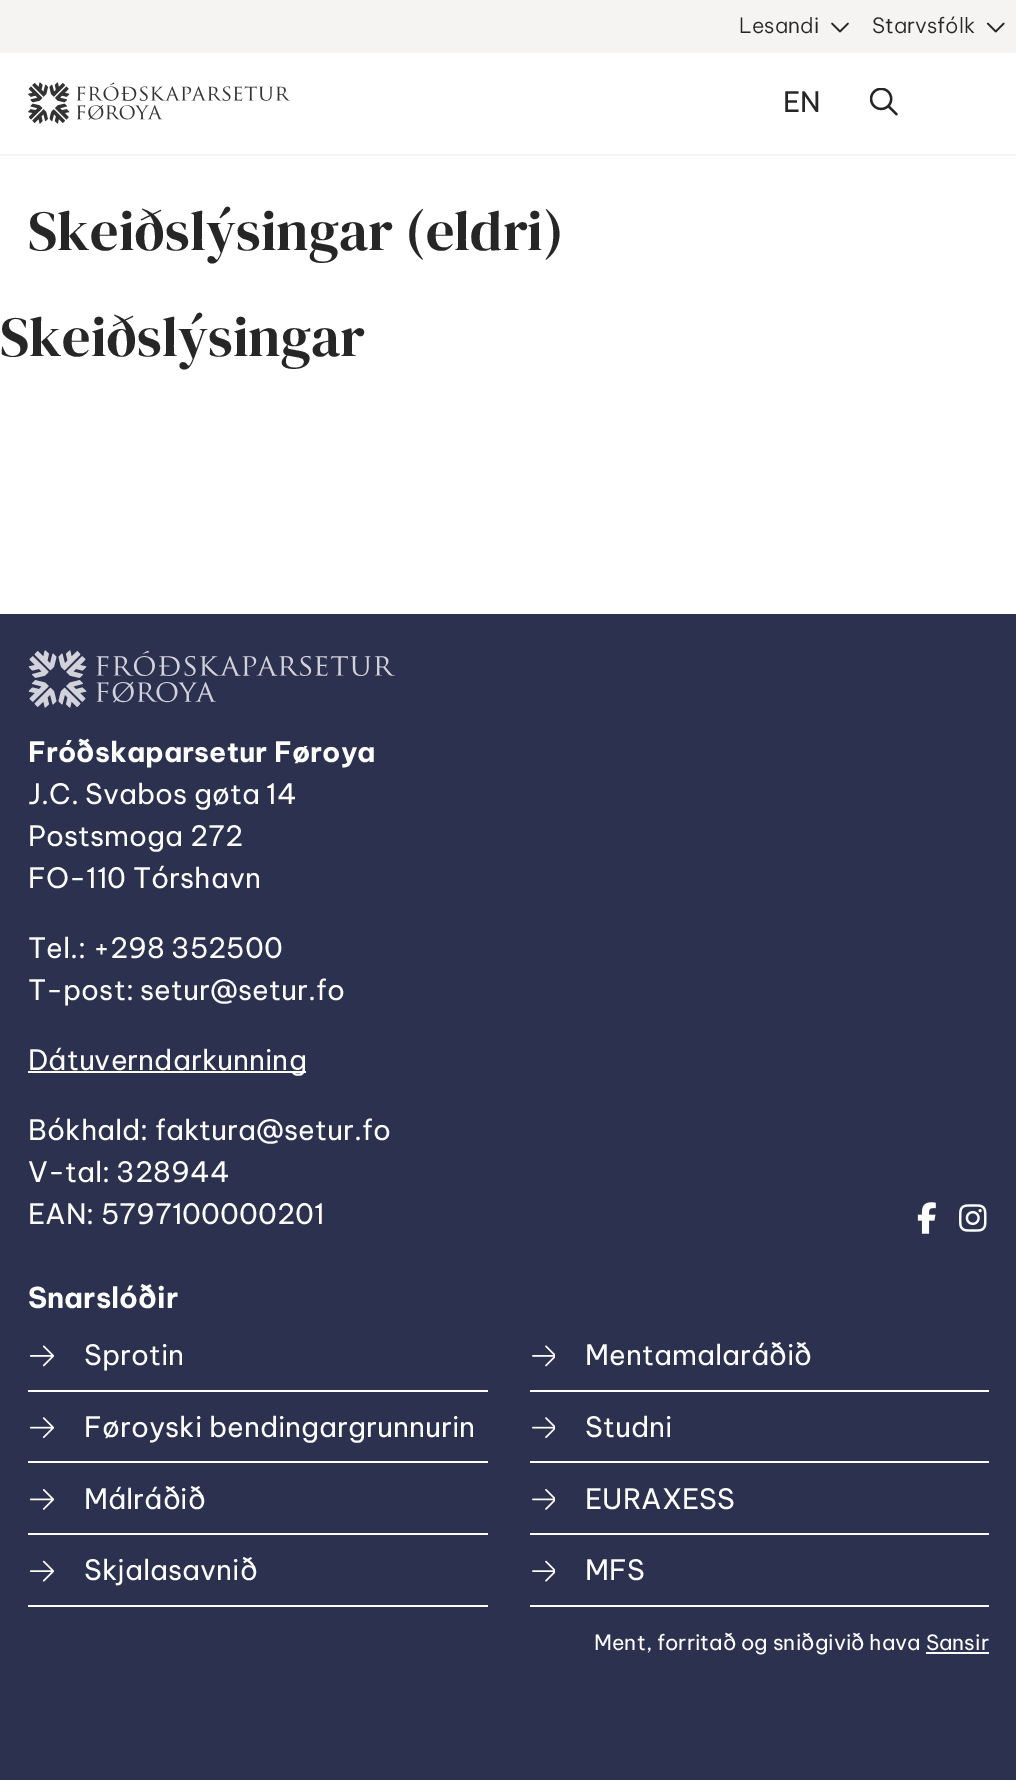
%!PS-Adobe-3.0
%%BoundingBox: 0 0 1016 1780
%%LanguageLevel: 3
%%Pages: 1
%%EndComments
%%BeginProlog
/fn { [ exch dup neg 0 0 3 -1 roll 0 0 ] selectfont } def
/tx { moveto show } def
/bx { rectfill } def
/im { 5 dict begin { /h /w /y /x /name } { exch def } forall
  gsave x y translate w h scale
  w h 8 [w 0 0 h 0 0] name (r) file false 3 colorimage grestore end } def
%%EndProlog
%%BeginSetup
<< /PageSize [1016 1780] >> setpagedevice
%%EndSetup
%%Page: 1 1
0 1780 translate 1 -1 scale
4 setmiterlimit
1 setgray
0 0 1016 1780 bx
0.965 0.953 0.953 setrgbcolor
0 0 1016 53 bx
/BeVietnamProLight-Light 21 fn
0.149 setgray
(Lesandi) 739 33 tx
(image0.raw) 831 22 18 11 im
(Starvsfólk) 872 33 tx
(image1.raw) 986 22 19 11 im
(image2.raw) 28 82 263 42 im
/BeVietnamPro-Regular 28 fn
(EN) 783 112 tx
(image3.raw) 870 88 28 28 im
0.953 0.957 0.965 setrgbcolor
0 154 1016 2 bx
/DMSerifDisplay-Regular 56.25 fn
0.149 setgray
(Skeiðslýsingar \(eldri\)) 28 250 tx
(Skeiðslýsingar) 0 356 tx
0.173 0.192 0.314 setrgbcolor
0 614 1016 1166 bx
(image4.raw) 28 650 367 58 im
/BeVietnamPro-Bold 28 fn
0.992 0.992 0.988 setrgbcolor
(Fróðskaparsetur Føroya) 28 762 tx
/BeVietnamPro-Regular 28 fn
(J.C. Svabos gøta 14) 28 804 tx
(Postsmoga 272) 28 846 tx
(FO-110 Tórshavn) 28 888 tx
(Tel.: +298 352500) 28 958 tx
(T-post: setur@setur.fo) 28 1000 tx
28 1071 278 2 bx
(Dátuverndarkunning) 28 1070 tx
(Bókhald: faktura@setur.fo) 28 1140 tx
(V-tal: 328944) 28 1182 tx
(EAN: 5797100000201) 28 1224 tx
(image5.raw) 917 1202 19 32 im
(image6.raw) 959 1204 28 28 im
/BeVietnamPro-Bold 28.75 fn
(Snarslóðir) 28 1308 tx
28 1390 460 2 bx
(image7.raw) 30 1345 24 22 im
/BeVietnamPro-Regular 28 fn
(Sprotin) 84 1365 tx
530 1390 459 2 bx
(image8.raw) 532 1345 23 22 im
(Mentamalaráðið) 585 1365 tx
28 1461 460 2 bx
(image9.raw) 30 1417 24 22 im
(Føroyski bendingargrunnurin) 84 1437 tx
530 1461 459 2 bx
(image10.raw) 532 1417 23 22 im
(Studni) 585 1437 tx
28 1533 460 2 bx
(image11.raw) 30 1489 24 21 im
(Málráðið) 84 1509 tx
530 1533 459 2 bx
(image12.raw) 532 1489 23 21 im
(EURAXESS) 585 1509 tx
28 1605 460 2 bx
(image13.raw) 30 1560 24 22 im
(Skjalasavnið) 84 1580 tx
530 1605 459 2 bx
(image14.raw) 532 1560 23 22 im
(MFS) 585 1580 tx
/BeVietnamPro-Regular 21 fn
(Ment, forritað og sniðgivið hava Sansir) 594 1650 tx
926 1652 63 2 bx
showpage
%%EOF
